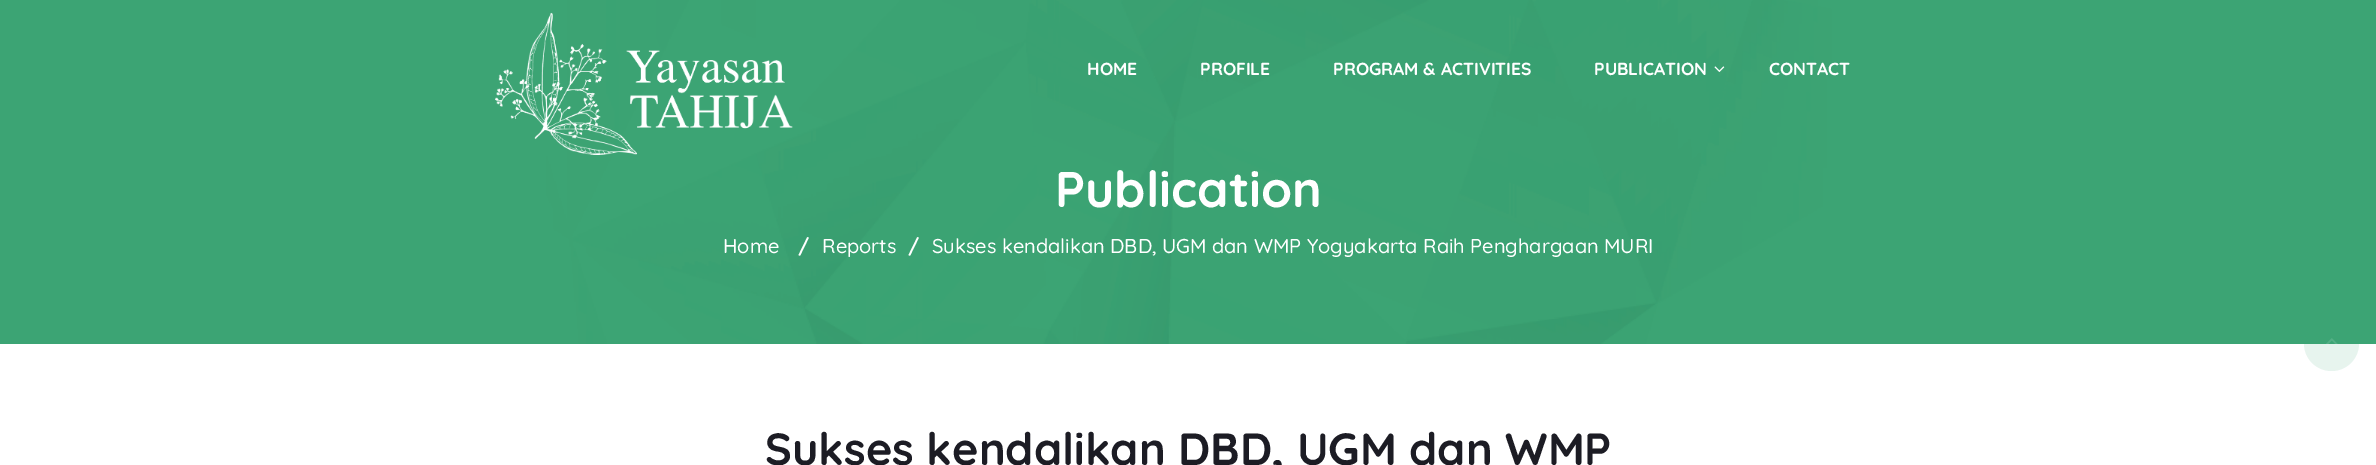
%!PS-Adobe-3.0
%%BoundingBox: 0 0 2376 465
%%LanguageLevel: 3
%%Pages: 1
%%EndComments
%%BeginProlog
/f { fill } bind def
/fn { [ exch dup neg 0 0 3 -1 roll 0 0 ] selectfont } def
/tx { moveto show } def
/bx { rectfill } def
/al { dup .setfillconstantalpha .setstrokeconstantalpha } def
/ci { newpath 0 360 arc closepath } def
/im { 5 dict begin { /h /w /y /x /name } { exch def } forall
  gsave x y translate w h scale
  w h 8 [w 0 0 h 0 0] name (r) file false 3 colorimage grestore end } def
%%EndProlog
%%BeginSetup
<< /PageSize [2376 465] /PageUsesTransparency true >> setpagedevice
%%EndSetup
%%Page: 1 1
0 .pushpdf14devicefilter
0 465 translate 1 -1 scale
4 setmiterlimit
1 setgray
0 0 2376 465 bx
(image2.raw) 0 0 2376 344 im
(image0.raw) 495 12 298 143 im
/Quicksand-Bold 17.5 fn
(HOME) 1087 75 tx
(PROFILE) 1200 75 tx
(PROGRAM & ACTIVITIES) 1333 75 tx
(PUBLICATION) 1594 75 tx
(image1.raw) 1714 66 11 6 im
(CONTACT) 1769 75 tx
/Quicksand-Bold 50 fn
(Publication) 1055 207 tx
/Quicksand-Medium 20 fn
(Home) 723 253 tx
/Quicksand-Bold 20 fn
(/) 798 253 tx
/Quicksand-Medium 20 fn
(Reports) 822 253 tx
/Quicksand-Bold 20 fn
(/) 908 253 tx
/Quicksand-Medium 20 fn
(Sukses kendalikan DBD, UGM dan WMP Yogyakarta Raih Penghargaan MURI) 932 253 tx
0.12 al
0.231 0.647 0.455 setrgbcolor
2331.5 343.5 27.5 ci f
1 al
(image3.raw) 2326 338 12 6 im
/Quicksand-Bold 45 fn
0.11 0.11 0.141 setrgbcolor
(Sukses kendalikan DBD, UGM dan WMP) 765 465 tx
.poppdf14devicefilter showpage
%%EOF
